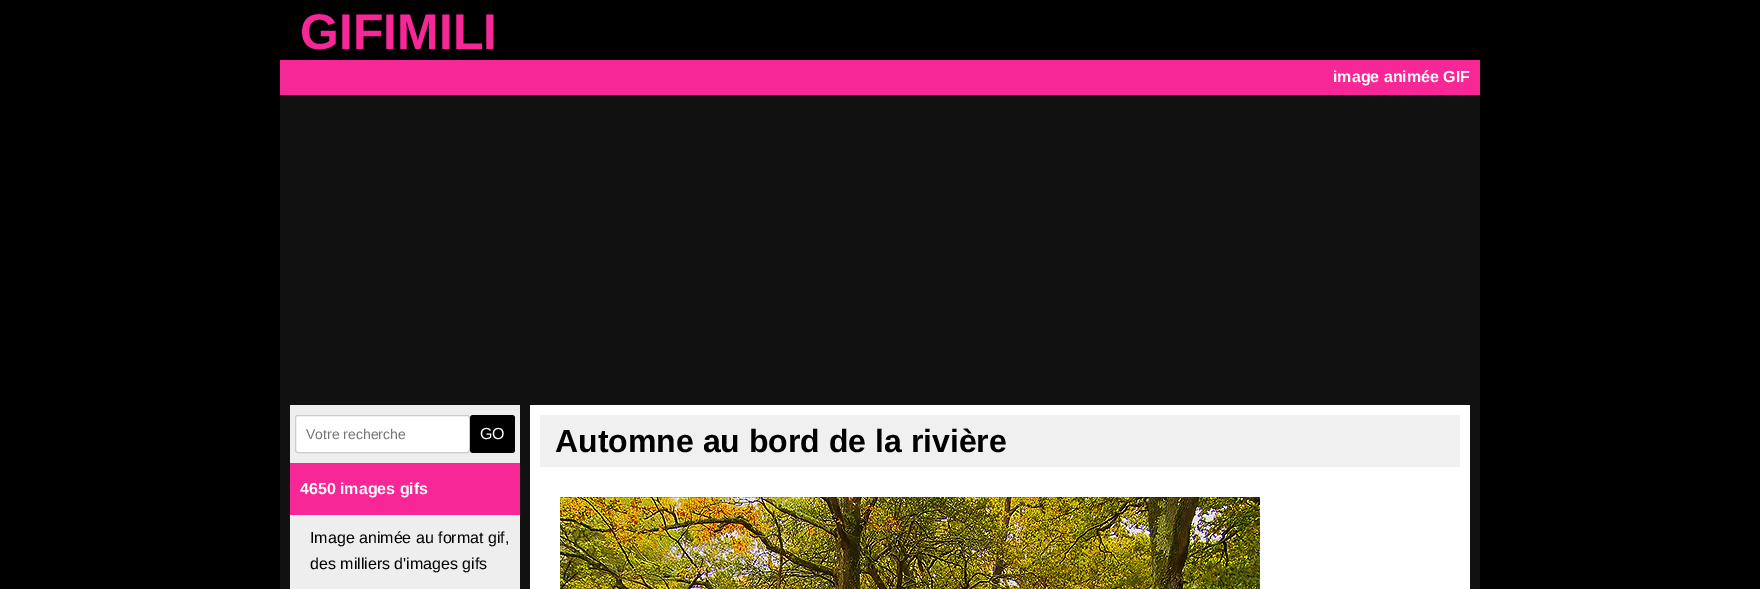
%!PS-Adobe-3.0
%%BoundingBox: 0 0 1760 589
%%LanguageLevel: 3
%%Pages: 1
%%EndComments
%%BeginProlog
/f { fill } bind def
/S { stroke } bind def
/q { gsave } bind def
/Q { grestore } bind def
/fn { [ exch dup neg 0 0 3 -1 roll 0 0 ] selectfont } def
/tx { moveto show } def
/bx { rectfill } def
/rr { 5 dict begin { /r /h /w /y /x } { exch def } forall
  x r add y moveto x w add y 2 copy h add r arct x w add y h add x 1 index r arct
  x y h add x y r arct x y 2 copy exch w add exch r arct closepath end } def
/im { 5 dict begin { /h /w /y /x /name } { exch def } forall
  gsave x y translate w h scale
  w h 8 [w 0 0 h 0 0] name (r) file false 3 colorimage grestore end } def
%%EndProlog
%%BeginSetup
<< /PageSize [1760 589] >> setpagedevice
%%EndSetup
%%Page: 1 1
0 589 translate 1 -1 scale
4 setmiterlimit
0 setgray
0 0 1760 589 bx
0.067 setgray
280 95 1200 494 bx
/LiberationSans-Bold 50 fn
0.969 0.153 0.596 setrgbcolor
(GIFIMILI) 300 49 tx
280 60 1200 35 bx
/LiberationSans-Bold 16 fn
1 setgray
(image animée GIF) 1333 82 tx
0.933 setgray
290 405 230 184 bx
1 setgray
295.5 415.5 174 37 2.5 rr q f Q
0.8 setgray
S
/LiberationSans-Regular 14 fn
0.459 setgray
(Votre recherche) 306 439 tx
0 setgray
470 415 45 38 3 rr f
/LiberationSans-Regular 16 fn
1 setgray
(GO) 480 439 tx
0.969 0.153 0.596 setrgbcolor
290 463 230 52 bx
/LiberationSans-Bold 16 fn
1 setgray
(4650 images gifs) 300 494 tx
/LiberationSans-Regular 16 fn
0 setgray
(Image animée au format gif,) 310 543 tx
(des milliers d'images gifs) 310 569 tx
1 setgray
530 405 940 184 bx
0.941 setgray
540 415 920 52 bx
/LiberationSans-Bold 32 fn
0 setgray
(Automne au bord de la rivière) 555 452 tx
(image0.raw) 560 497 700 92 im
showpage
%%EOF
